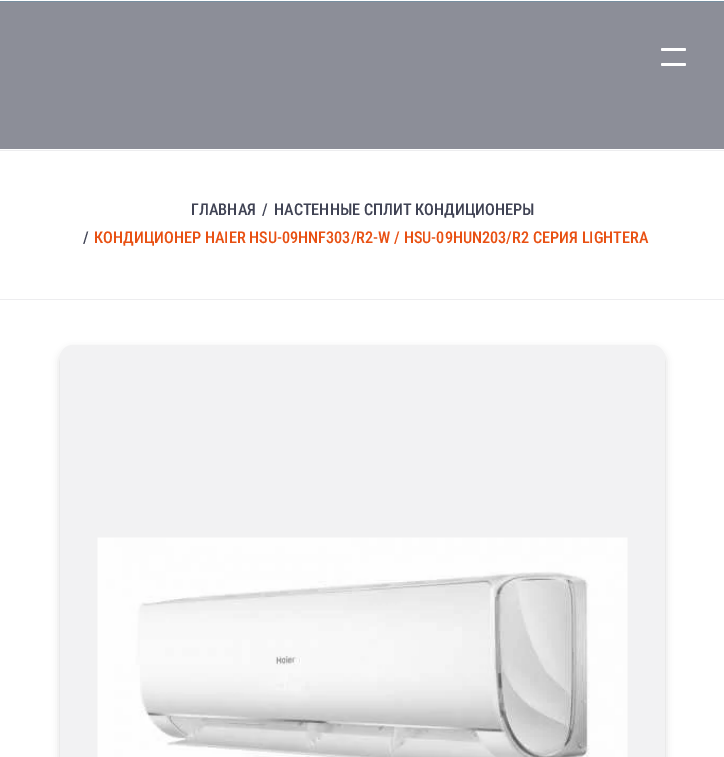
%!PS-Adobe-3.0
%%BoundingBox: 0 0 724 757
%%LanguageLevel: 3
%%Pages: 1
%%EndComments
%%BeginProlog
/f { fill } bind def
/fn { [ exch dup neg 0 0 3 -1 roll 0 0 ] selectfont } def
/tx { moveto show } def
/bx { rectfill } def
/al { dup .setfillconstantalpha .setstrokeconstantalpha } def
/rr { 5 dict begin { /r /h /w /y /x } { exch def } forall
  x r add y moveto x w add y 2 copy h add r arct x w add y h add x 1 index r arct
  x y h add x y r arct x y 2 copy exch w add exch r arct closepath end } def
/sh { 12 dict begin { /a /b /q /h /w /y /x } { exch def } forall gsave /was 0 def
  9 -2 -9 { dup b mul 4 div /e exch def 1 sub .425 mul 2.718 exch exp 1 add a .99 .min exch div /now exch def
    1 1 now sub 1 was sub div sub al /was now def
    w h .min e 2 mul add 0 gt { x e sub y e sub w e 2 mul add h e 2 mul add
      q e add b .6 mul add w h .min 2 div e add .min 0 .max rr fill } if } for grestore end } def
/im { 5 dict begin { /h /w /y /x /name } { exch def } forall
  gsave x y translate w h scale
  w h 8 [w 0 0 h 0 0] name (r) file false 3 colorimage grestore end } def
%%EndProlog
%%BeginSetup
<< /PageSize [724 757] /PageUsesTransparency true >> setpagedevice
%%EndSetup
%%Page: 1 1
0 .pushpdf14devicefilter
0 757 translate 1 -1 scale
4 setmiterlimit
1 setgray
0 0 724 757 bx
0.549 0.557 0.596 setrgbcolor
0 2 724 147 bx
0.467 0.561 0.631 setrgbcolor
0 1 724 1 bx
1 setgray
661 48 25 3 1.5 rr f
661 63 25 3 1.5 rr f
0.929 0.929 0.937 setrgbcolor
0 150 724 1 bx
0 299 724 1 bx
/RobotoCondensed-Medium 16.25 fn
0.251 0.263 0.329 setrgbcolor
(ГЛАВНАЯ) 191 215 tx
(/) 262 215 tx
(НАСТЕННЫЕ СПЛИТ КОНДИЦИОНЕРЫ) 274 215 tx
(/) 83 243 tx
0.91 0.314 0.071 setrgbcolor
(КОНДИЦИОНЕР HAIER HSU-09HNF303/R2-W / HSU-09HUN203/R2 СЕРИЯ LIGHTERA) 94 243 tx
0 setgray
60 349 605 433 13 4 0.16 sh
0.949 0.949 0.953 setrgbcolor
60 345 605 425 13 rr f
(image0.raw) 97 537 531 220 im
.poppdf14devicefilter showpage
%%EOF
